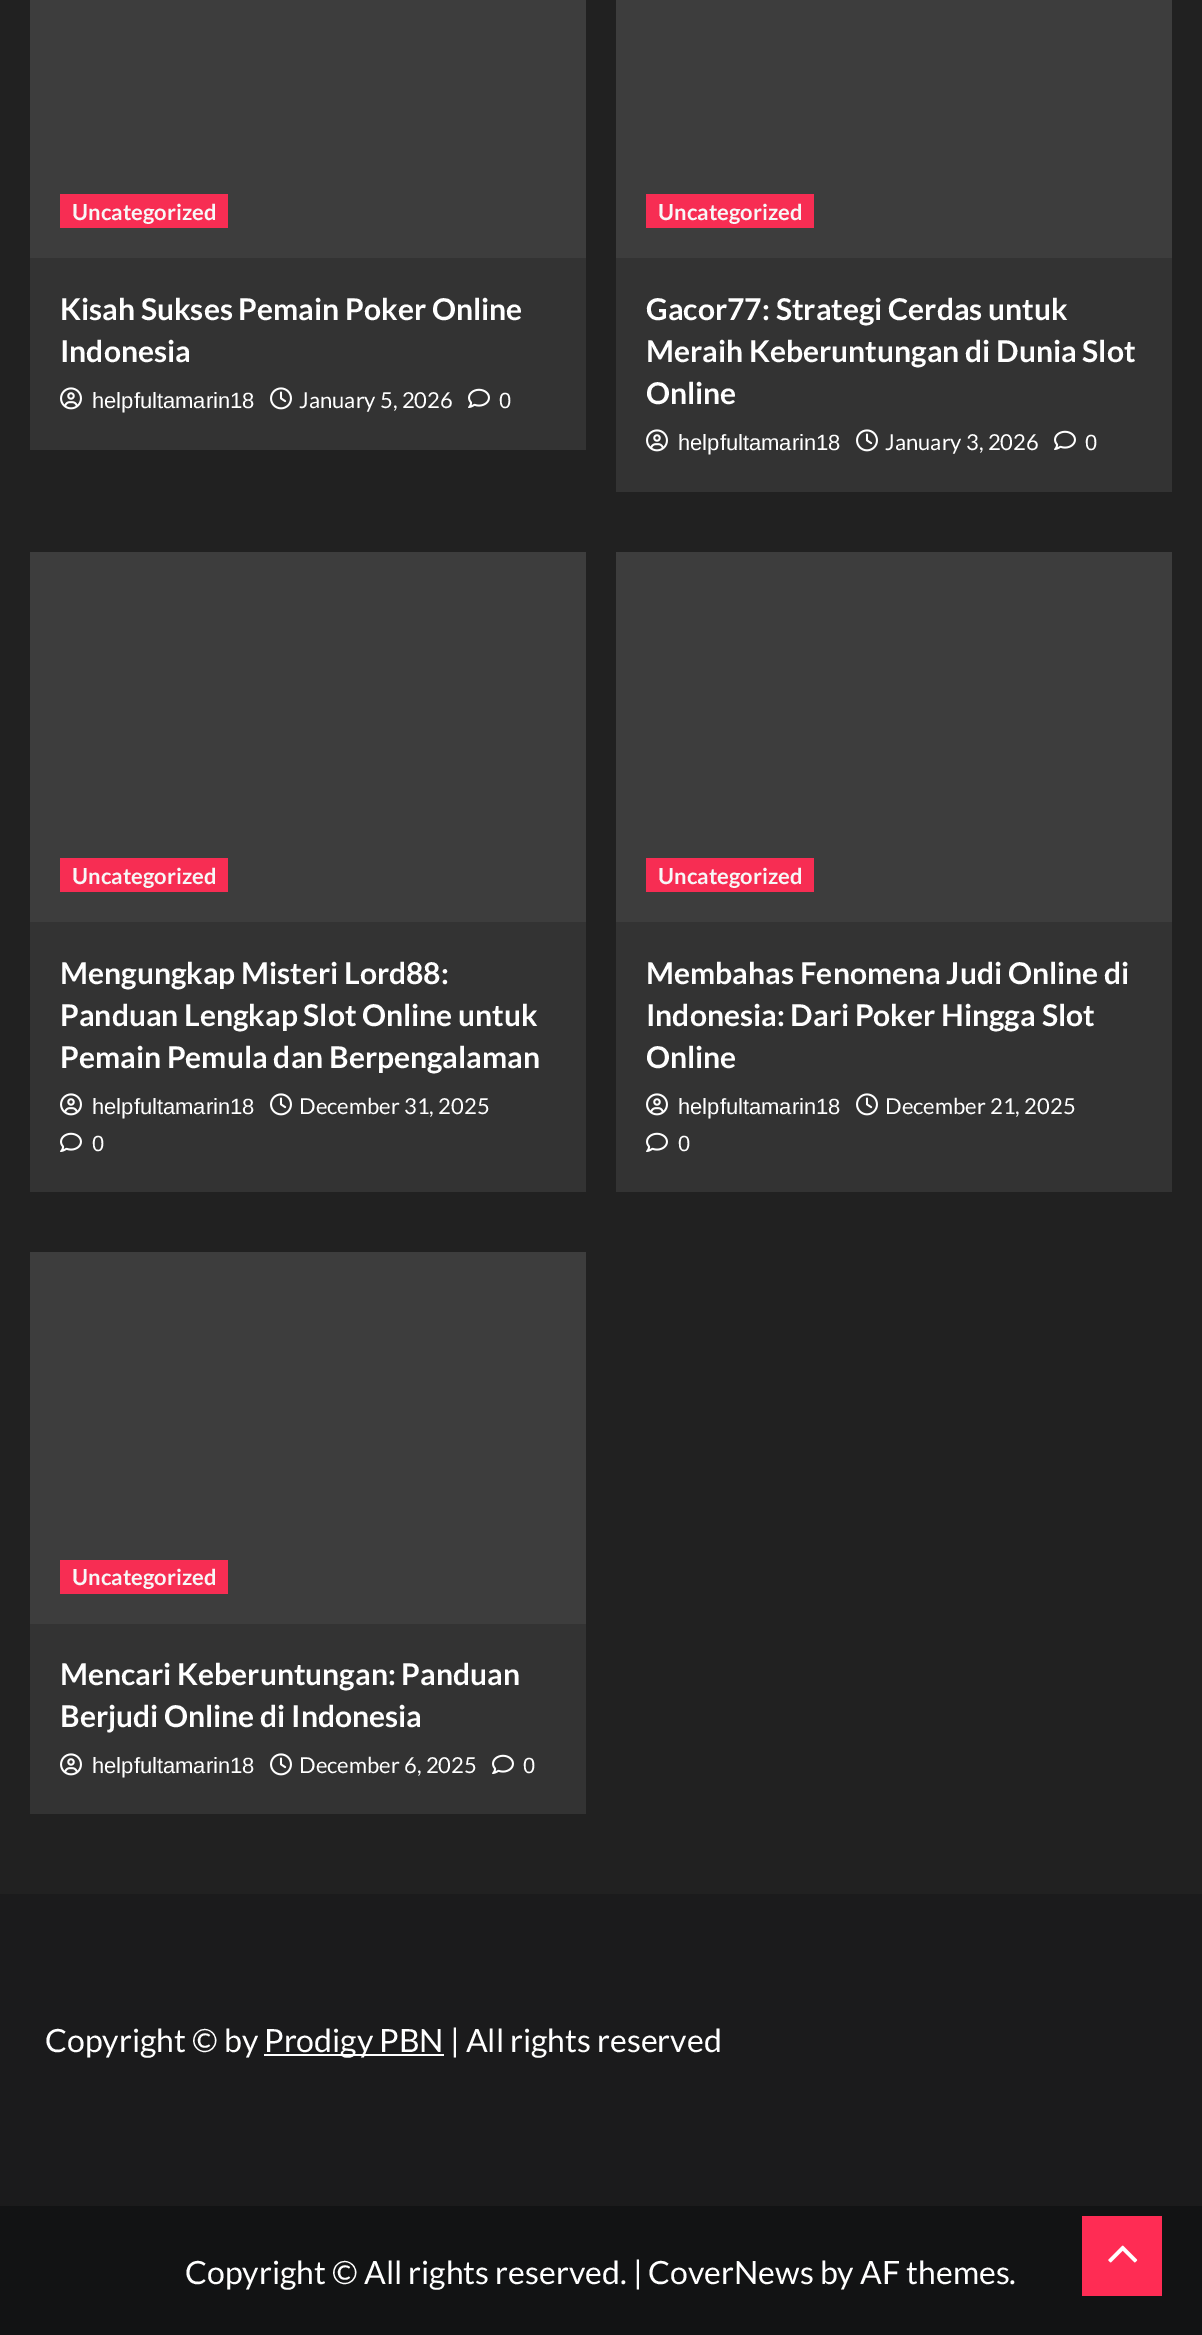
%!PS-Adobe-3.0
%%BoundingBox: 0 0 1202 2335
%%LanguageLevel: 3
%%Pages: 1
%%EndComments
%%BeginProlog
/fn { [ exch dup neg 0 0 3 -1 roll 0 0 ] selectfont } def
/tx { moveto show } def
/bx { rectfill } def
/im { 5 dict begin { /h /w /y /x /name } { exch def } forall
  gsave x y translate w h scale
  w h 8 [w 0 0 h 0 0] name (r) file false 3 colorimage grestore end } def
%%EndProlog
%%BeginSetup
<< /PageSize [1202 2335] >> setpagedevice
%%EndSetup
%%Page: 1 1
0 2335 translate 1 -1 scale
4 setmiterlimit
0.129 setgray
0 0 1202 2335 bx
0.2 setgray
30 258 556 192 bx
0.239 setgray
30 0 556 258 bx
0.969 0.176 0.325 setrgbcolor
60 194 168 34 bx
/Lato-Bold 22 fn
0.969 setgray
(Uncategorized) 72 220 tx
/Lato-Bold 30 fn
1 setgray
(Kisah Sukses Pemain Poker Online) 60 320 tx
(Indonesia) 60 362 tx
(image0.raw) 60 387 22 23 im
/LiberationSans-Regular 22 fn
(helpfultamarin18) 92 408 tx
(image1.raw) 270 387 22 23 im
/Lato-Regular 22 fn
(January 5, 2026) 299 408 tx
(image2.raw) 468 388 22 20 im
/LiberationSans-Regular 22 fn
(0) 499 408 tx
0.2 setgray
616 258 556 234 bx
0.239 setgray
616 0 556 258 bx
0.969 0.176 0.325 setrgbcolor
646 194 168 34 bx
/Lato-Bold 22 fn
0.969 setgray
(Uncategorized) 658 220 tx
/Lato-Bold 30 fn
1 setgray
(Gacor77: Strategi Cerdas untuk) 646 320 tx
(Meraih Keberuntungan di Dunia Slot) 646 362 tx
(Online) 646 404 tx
(image0.raw) 646 429 22 23 im
/LiberationSans-Regular 22 fn
(helpfultamarin18) 678 450 tx
(image1.raw) 856 429 22 23 im
/Lato-Regular 22 fn
(January 3, 2026) 885 450 tx
(image2.raw) 1054 430 22 20 im
/LiberationSans-Regular 22 fn
(0) 1085 450 tx
0.2 setgray
30 922 556 270 bx
0.239 setgray
30 552 556 370 bx
0.969 0.176 0.325 setrgbcolor
60 858 168 34 bx
/Lato-Bold 22 fn
0.969 setgray
(Uncategorized) 72 884 tx
/Lato-Bold 30 fn
1 setgray
(Mengungkap Misteri Lord88:) 60 984 tx
(Panduan Lengkap Slot Online untuk) 60 1026 tx
(Pemain Pemula dan Berpengalaman) 60 1068 tx
(image0.raw) 60 1093 22 23 im
/LiberationSans-Regular 22 fn
(helpfultamarin18) 92 1114 tx
(image1.raw) 270 1093 22 23 im
/Lato-Regular 22 fn
(December 31, 2025) 299 1114 tx
(image2.raw) 60 1132 22 20 im
/LiberationSans-Regular 22 fn
(0) 92 1151 tx
0.2 setgray
616 922 556 270 bx
0.239 setgray
616 552 556 370 bx
0.969 0.176 0.325 setrgbcolor
646 858 168 34 bx
/Lato-Bold 22 fn
0.969 setgray
(Uncategorized) 658 884 tx
/Lato-Bold 30 fn
1 setgray
(Membahas Fenomena Judi Online di) 646 984 tx
(Indonesia: Dari Poker Hingga Slot) 646 1026 tx
(Online) 646 1068 tx
(image0.raw) 646 1093 22 23 im
/LiberationSans-Regular 22 fn
(helpfultamarin18) 678 1114 tx
(image1.raw) 856 1093 22 23 im
/Lato-Regular 22 fn
(December 21, 2025) 885 1114 tx
(image2.raw) 646 1132 22 20 im
/LiberationSans-Regular 22 fn
(0) 678 1151 tx
0.2 setgray
30 1624 556 190 bx
0.239 setgray
30 1252 556 372 bx
0.969 0.176 0.325 setrgbcolor
60 1560 168 34 bx
/Lato-Bold 22 fn
0.969 setgray
(Uncategorized) 72 1585 tx
/Lato-Bold 30 fn
1 setgray
(Mencari Keberuntungan: Panduan) 60 1685 tx
(Berjudi Online di Indonesia) 60 1727 tx
(image0.raw) 60 1753 22 23 im
/LiberationSans-Regular 22 fn
(helpfultamarin18) 92 1773 tx
(image1.raw) 270 1753 22 23 im
/Lato-Regular 22 fn
(December 6, 2025) 299 1773 tx
(image2.raw) 492 1754 22 20 im
/LiberationSans-Regular 22 fn
(0) 523 1773 tx
0.106 0.106 0.11 setrgbcolor
0 1894 1202 312 bx
/Lato-Regular 32 fn
1 setgray
(Copyright © by) 45 2052 tx
264 2054 180 2 bx
(Prodigy PBN | All rights reserved) 264 2052 tx
0.071 0.075 0.078 setrgbcolor
0 2206 1202 129 bx
1 setgray
(Copyright © All rights reserved. | CoverNews by AF themes.) 185 2284 tx
1 0.173 0.329 setrgbcolor
1082 2216 80 80 bx
(image3.raw) 1108 2245 30 18 im
showpage
%%EOF
